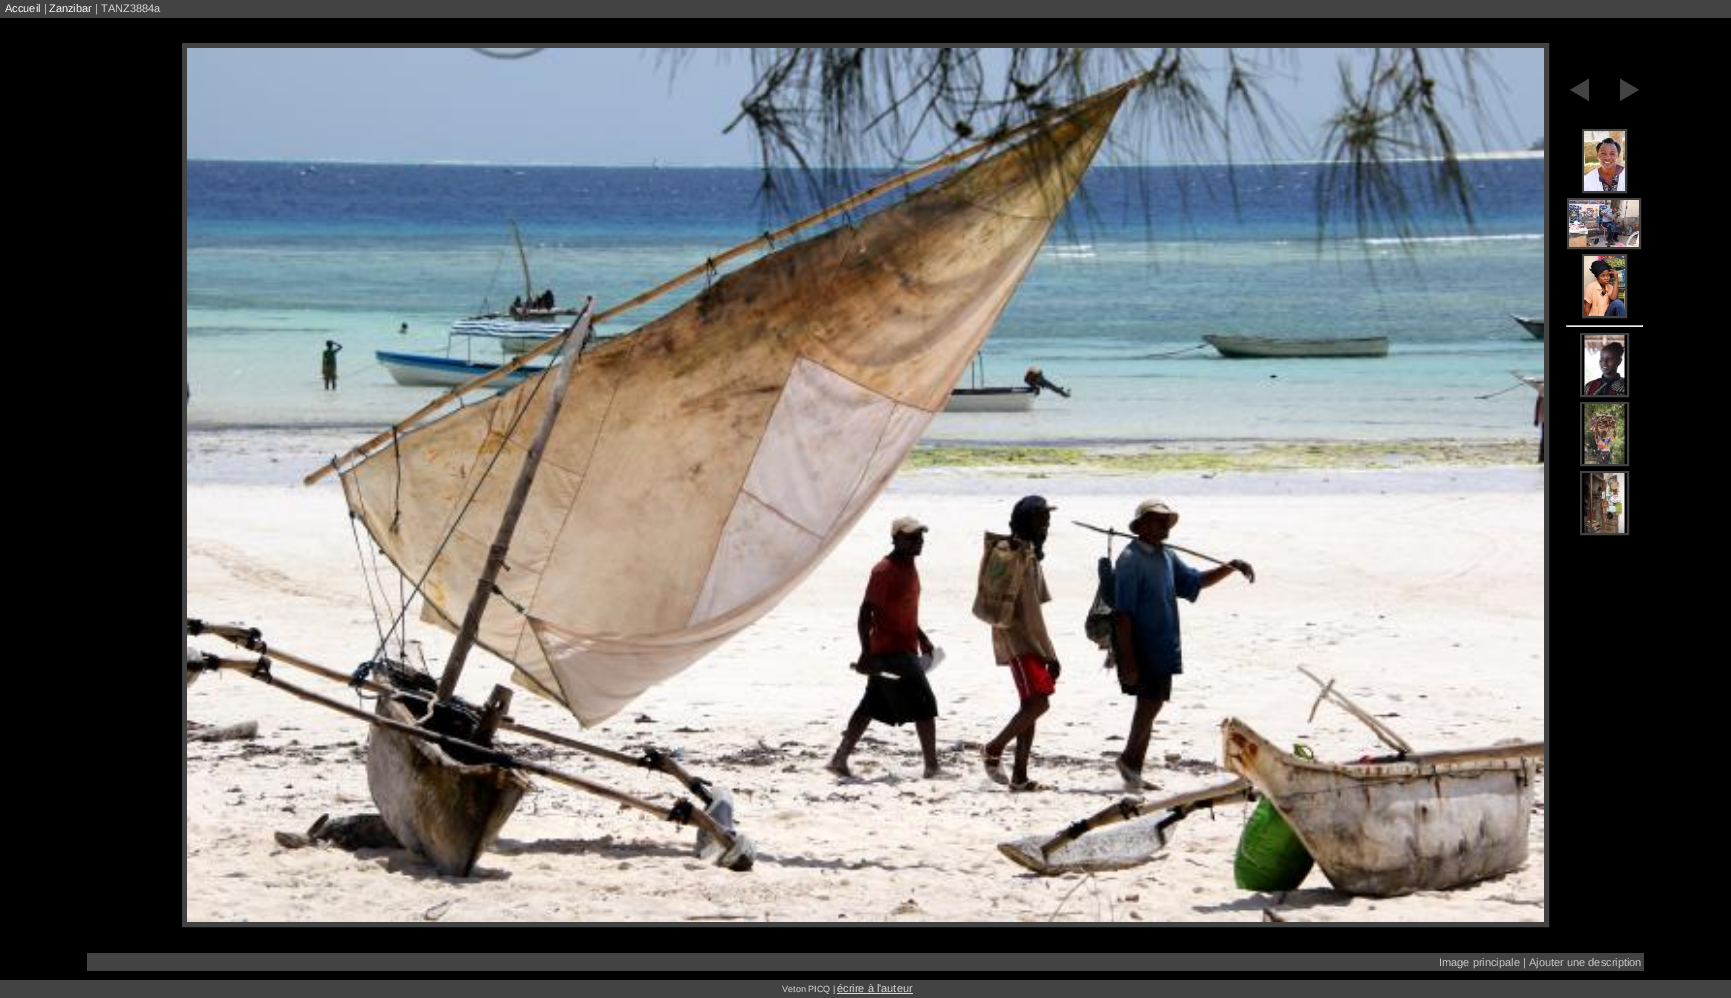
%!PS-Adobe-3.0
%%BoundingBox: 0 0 1731 998
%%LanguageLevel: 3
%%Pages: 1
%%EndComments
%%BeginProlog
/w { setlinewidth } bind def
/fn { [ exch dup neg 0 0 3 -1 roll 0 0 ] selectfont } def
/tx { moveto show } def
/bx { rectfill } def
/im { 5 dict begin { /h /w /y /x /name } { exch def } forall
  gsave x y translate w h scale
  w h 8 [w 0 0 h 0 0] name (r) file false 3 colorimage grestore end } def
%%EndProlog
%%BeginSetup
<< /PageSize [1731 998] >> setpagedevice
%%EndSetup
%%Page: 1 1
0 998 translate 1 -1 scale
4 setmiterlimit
0 setgray
0 0 1731 998 bx
0.263 setgray
0 0 1731 18 bx
/LiberationSans-Regular 11 fn
1 setgray
(Accueil) 5 12 tx
0.855 setgray
(|) 44 12 tx
1 setgray
(Zanzibar) 49 12 tx
0.855 setgray
(| TANZ3884a) 95 12 tx
0.263 setgray
5 w
184.5 45.5 1362 879 rectstroke
(image0.raw) 187 48 1357 874 im
(image1.raw) 1570 78 19 23 im
(image2.raw) 1620 78 19 23 im
2 w
1583 130 43 62 rectstroke
(image3.raw) 1584 131 41 60 im
1568 199 72 49 rectstroke
(image4.raw) 1569 200 70 47 im
1583 255 43 62 rectstroke
(image5.raw) 1584 256 41 60 im
0.624 setgray
1566 325 77 1 bx
0.933 setgray
1642 325 1 2 bx
1566 326 77 1 bx
0.624 setgray
1566 325 1 2 bx
0.263 setgray
1581 334 47 62 rectstroke
(image6.raw) 1582 335 45 60 im
1581 403 47 62 rectstroke
(image7.raw) 1582 404 45 60 im
1581 472 47 62 rectstroke
(image8.raw) 1582 473 45 60 im
87 953 1557 18 bx
0.792 setgray
(Image principale) 1439 966 tx
0.855 setgray
(|) 1523 966 tx
0.792 setgray
(Ajouter une description) 1529 966 tx
0.263 setgray
0 980 1731 18 bx
/LiberationSans-Regular 9 fn
0.855 setgray
(Veton PICQ |) 782 992 tx
/LiberationSans-Regular 11 fn
(écrire à l'auteur) 837 992 tx
837 993 76 1 bx
showpage
%%EOF
